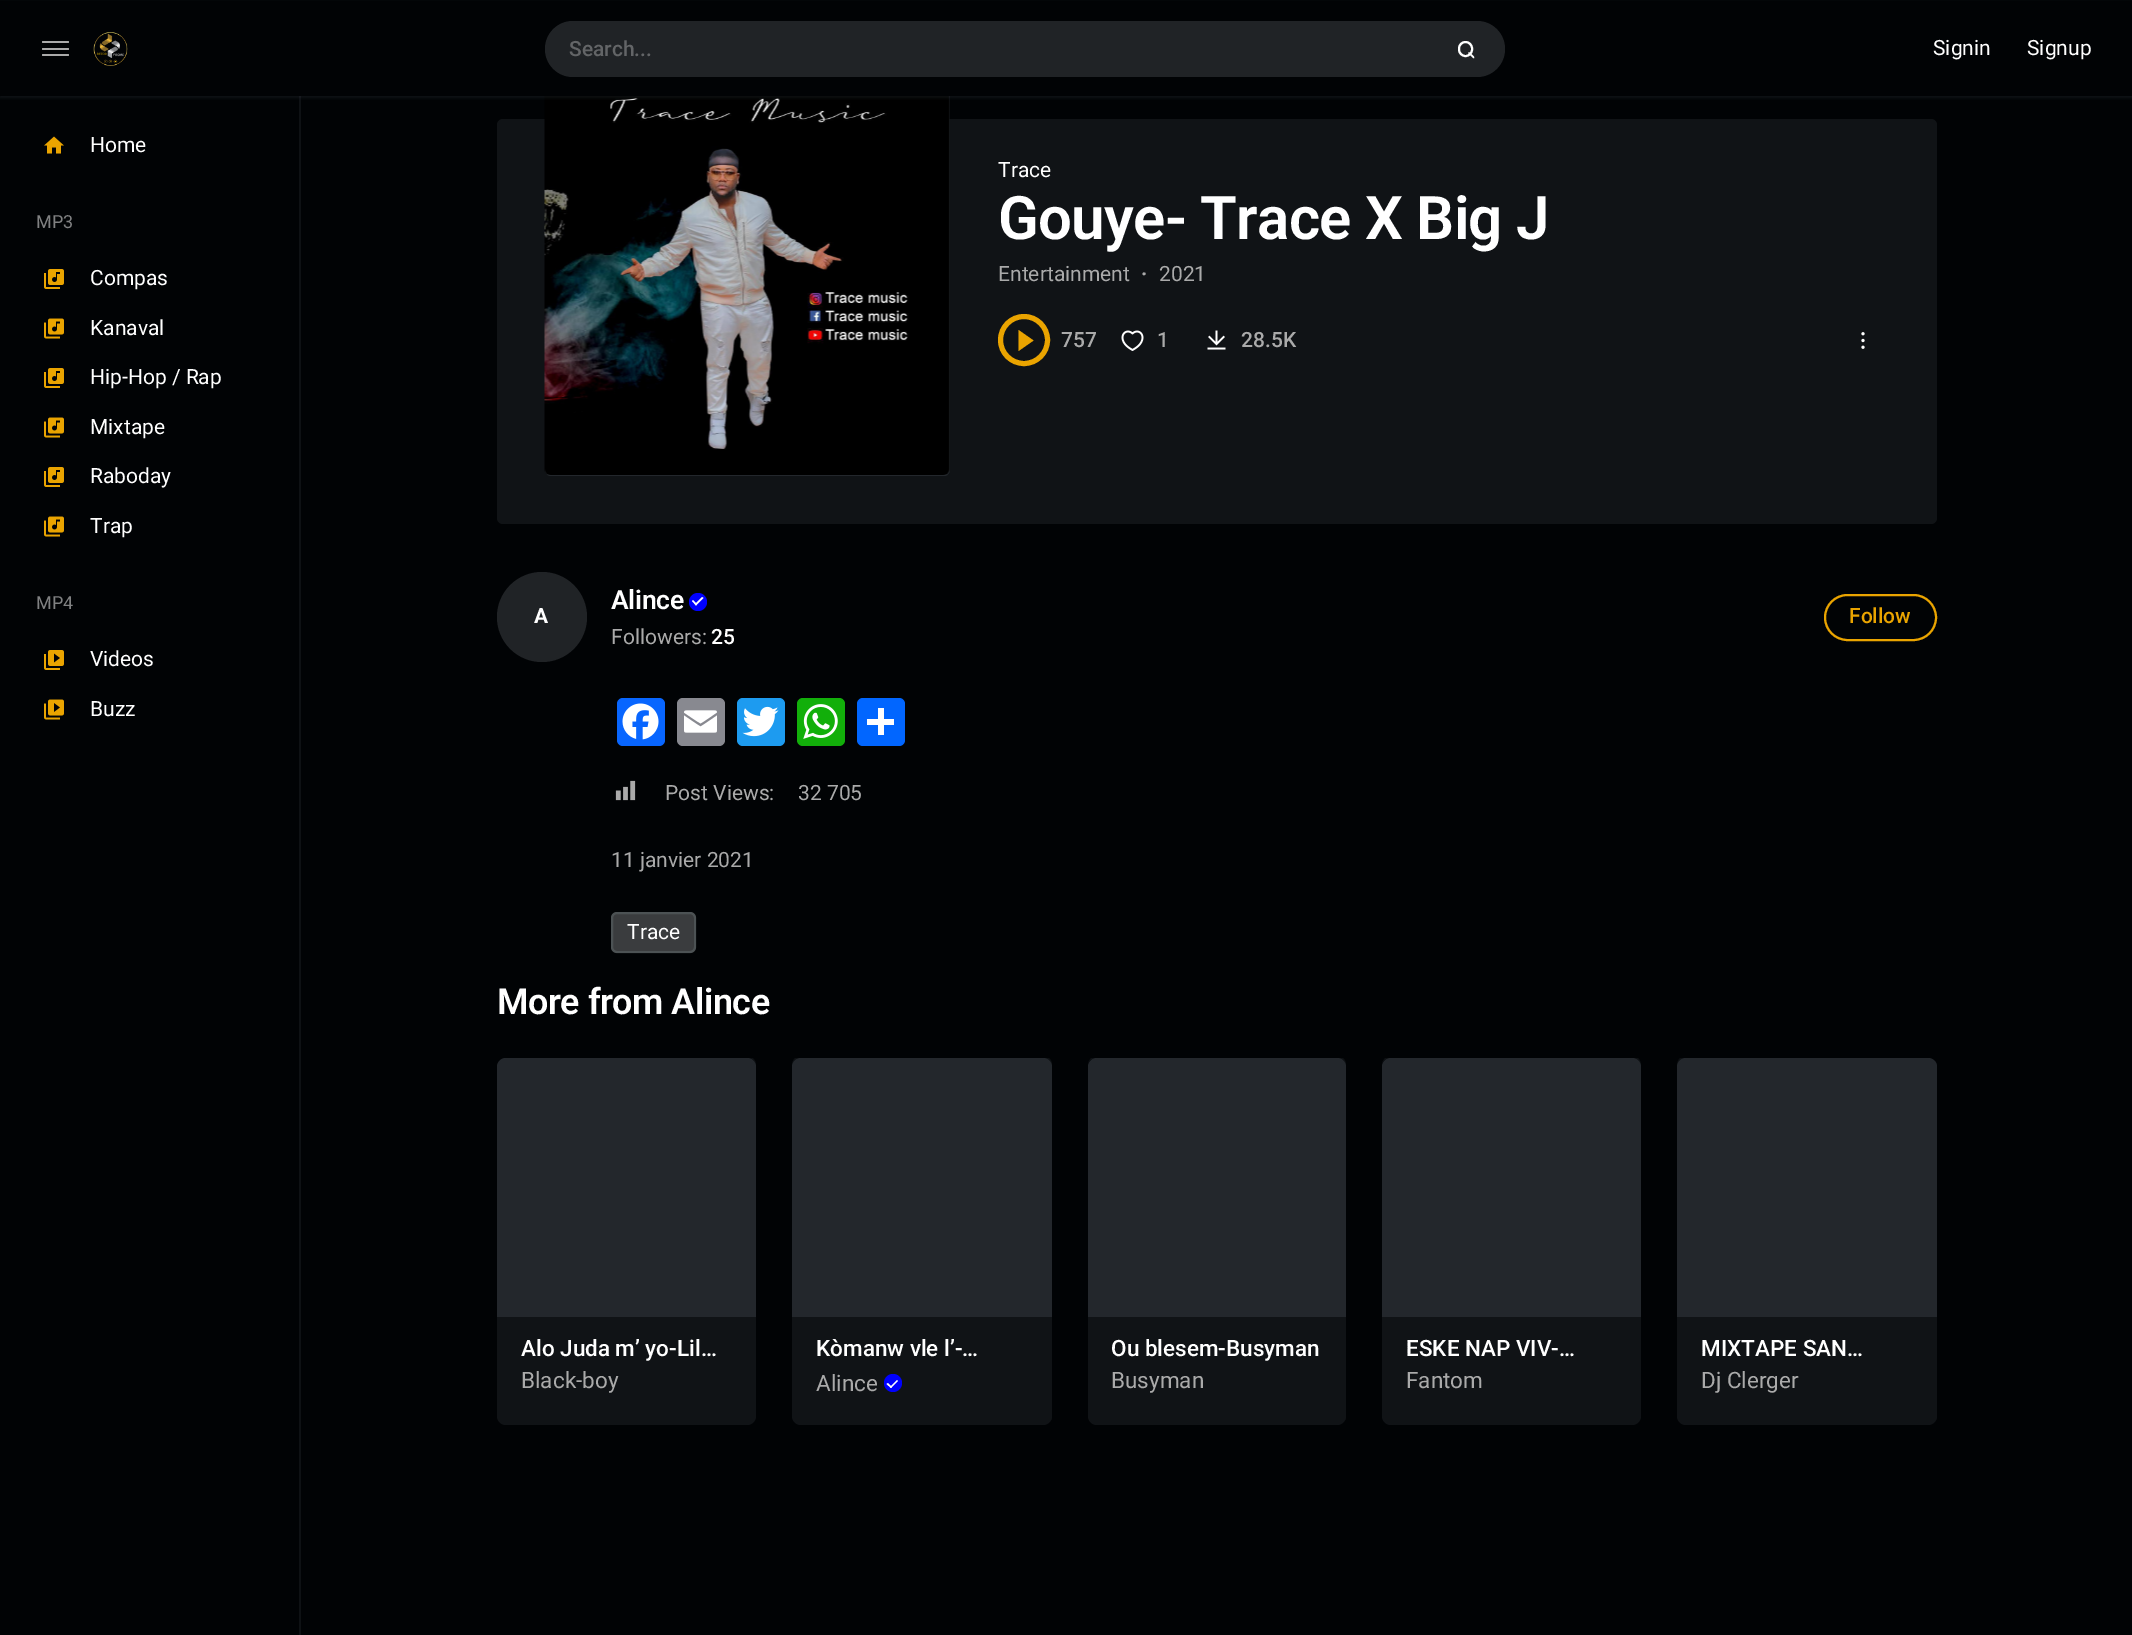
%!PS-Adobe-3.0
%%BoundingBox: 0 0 2132 1635
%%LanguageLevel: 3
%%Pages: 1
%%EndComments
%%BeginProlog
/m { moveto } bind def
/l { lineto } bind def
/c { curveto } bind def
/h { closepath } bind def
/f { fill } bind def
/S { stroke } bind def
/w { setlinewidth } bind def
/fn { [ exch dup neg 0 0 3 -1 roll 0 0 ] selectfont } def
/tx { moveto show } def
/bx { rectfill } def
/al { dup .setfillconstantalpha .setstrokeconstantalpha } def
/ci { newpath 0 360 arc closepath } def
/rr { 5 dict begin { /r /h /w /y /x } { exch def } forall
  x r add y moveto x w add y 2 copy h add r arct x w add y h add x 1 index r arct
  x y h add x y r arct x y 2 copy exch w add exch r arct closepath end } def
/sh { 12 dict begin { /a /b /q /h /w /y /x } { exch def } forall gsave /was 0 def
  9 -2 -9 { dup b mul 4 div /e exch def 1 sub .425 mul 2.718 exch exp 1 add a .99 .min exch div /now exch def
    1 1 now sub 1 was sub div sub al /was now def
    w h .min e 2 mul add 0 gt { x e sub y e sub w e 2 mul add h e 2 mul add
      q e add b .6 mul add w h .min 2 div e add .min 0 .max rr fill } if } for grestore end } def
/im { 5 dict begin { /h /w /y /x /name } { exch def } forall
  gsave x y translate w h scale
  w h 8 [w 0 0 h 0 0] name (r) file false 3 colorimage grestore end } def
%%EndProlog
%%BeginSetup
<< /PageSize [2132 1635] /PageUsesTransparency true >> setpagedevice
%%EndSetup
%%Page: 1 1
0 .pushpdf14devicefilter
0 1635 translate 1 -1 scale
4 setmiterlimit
0.004 0.012 0.02 setrgbcolor
0 0 2132 1635 bx
0.055 0.067 0.078 setrgbcolor
299 96 2 1539 bx
0.063 0.075 0.086 setrgbcolor
497 119 1440 405 6 rr f
0.2 al
0.431 0.471 0.51 setrgbcolor
545 71 405 405 6 rr f
1 al
(image6.raw) 544 96 406 379 im
0.51 0.549 0.588 setrgbcolor
0 2 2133 96 0 1 0.1 sh
0.004 0.012 0.02 setrgbcolor
0 1 2132 95 bx
0.667 setgray
42 48 27 2 1 rr f
42 41 27 2 1 rr f
42 54 27 2 1 rr f
(image0.raw) 93 32 35 34 im
0.125 0.137 0.149 setrgbcolor
545 21 960 56 28 rr f
/Roboto-Medium 21 fn
0.388 0.396 0.404 setrgbcolor
(Search...) 569 56 tx
1 setgray
2 w
1459 42 13 14 6.5 rr S
1469.5 52.5 m 1473.5 56 l 1475 58 1474 59 1472.5 57.5 c 1468.5 53.5 l 1468 52.5 1469 52 1469.5 52.5 c h f
/Roboto-Regular 21 fn
(Signin) 1933 55 tx
(Signup) 2027 55 tx
(image1.raw) 44 136 20 18 im
(Home) 90 152 tx
/Roboto-Regular 18 fn
0.502 0.506 0.51 setrgbcolor
(MP3) 36 228 tx
(image2.raw) 44 269 20 20 im
/Roboto-Regular 21 fn
1 setgray
(Compas) 90 285 tx
(image3.raw) 44 318 20 21 im
(Kanaval) 90 335 tx
(image2.raw) 44 368 20 20 im
(Hip-Hop / Rap) 90 384 tx
(image3.raw) 44 417 20 21 im
(Mixtape) 90 434 tx
(image2.raw) 44 467 20 20 im
(Raboday) 90 483 tx
(image3.raw) 44 516 20 21 im
(Trap) 90 533 tx
/Roboto-Regular 18 fn
0.502 0.506 0.51 setrgbcolor
(MP4) 36 609 tx
(image4.raw) 44 650 20 20 im
/Roboto-Regular 21 fn
1 setgray
(Videos) 90 666 tx
(image5.raw) 44 699 20 21 im
(Buzz) 90 716 tx
(Trace) 998 177 tx
/Roboto-SemiBold 60 fn
998 239 m -0.75 0 (Gouye- Trace X Big J) ashow
/Roboto-Regular 21 fn
0.667 setgray
(Entertainment) 998 281 tx
/Roboto-Bold 21 fn
(·) 1141 281 tx
/Roboto-Regular 21 fn
(2021) 1159 281 tx
0.918 0.643 0 setrgbcolor
1018.5 351 m 1018.5 330 l 1033.5 340.5 l h f
5 w
1024 340 23.5 ci S
/Roboto-Medium 21 fn
0.667 setgray
(757) 1061 347 tx
(image7.raw) 1121 330 23 21 im
(1) 1157 347 tx
(image8.raw) 1207 330 19 20 im
(28.5K) 1241 347 tx
(image9.raw) 1861 332 4 17 im
0.125 0.137 0.149 setrgbcolor
542 617 45 ci f
/Roboto-Bold 21 fn
1 setgray
(A) 534 623 tx
/Roboto-SemiBold 26.5 fn
611 609 m -0.25 0 (Alince) ashow
0 0 1 setrgbcolor
698 602 9 ci f
1 setgray
695 604 m 702 597 l 703.5 598 l 696 605.5 l h f
692 601 m 693 600 l 697 604 l 696 605.5 l h f
/Roboto-Regular 21 fn
0.667 setgray
(Followers:) 611 644 tx
/Roboto-Medium 21 fn
1 setgray
(25) 711 644 tx
0.918 0.643 0 setrgbcolor
2 w
1825 595 111 45 22.5 rr S
(Follow) 1849 623 tx
0.031 0.4 1 setrgbcolor
617 698 48 48 6 rr f
(image10.raw) 622 703 37 37 im
0.533 0.537 0.565 setrgbcolor
677 698 48 48 6 rr f
(image11.raw) 684 710 33 23 im
0.114 0.608 0.941 setrgbcolor
737 698 48 48 6 rr f
(image12.raw) 742 706 37 31 im
0.071 0.686 0.039 setrgbcolor
797 698 48 48 6 rr f
(image13.raw) 803 704 35 35 im
0.004 0.4 1 setrgbcolor
857 698 48 48 6 rr f
1 setgray
878 708 6 27 bx
867 719 27 6 bx
(image14.raw) 615 780 21 21 im
/Roboto-Regular 21 fn
0.667 setgray
(Post Views:) 665 800 tx
(32 705) 798 800 tx
(11 janvier 2021) 611 867 tx
0.227 0.235 0.243 setrgbcolor
611 912 85 41 6 rr f
0.2 al
0.588 0.667 0.667 setrgbcolor
612 913 83 39 5 rr S
1 al
1 setgray
(Trace) 627 939 tx
/Roboto-SemiBold 36 fn
497 1014 m -0.5 0 (More from Alince) ashow
0.051 0.063 0.075 setrgbcolor
756 1066.5 m 756 1063 755.5 1060 752.5 1058 c 750 1058 l 753.5 1059 756 1062.5 756 1066.5 c h f
0.063 0.075 0.086 setrgbcolor
497 1058 259 367 9 rr f
0.2 al
0.431 0.471 0.51 setrgbcolor
506 1058 m 747 1058 l 752 1058 756 1062 756 1067 c 756 1317 l 497 1317 l 497 1067 l 497 1062 501 1058 506 1058 c h f
/Roboto-Medium 22.5 fn
1 al
1 setgray
(Alo Juda m’ yo-Lil…) 521 1356 tx
/Roboto-Regular 22.5 fn
0.667 setgray
(Black-boy) 521 1388 tx
0.051 0.063 0.075 setrgbcolor
798 1058 m 795 1058 l 793 1060 792 1063 792 1066 c 792 1063 795 1059 798 1058 c h 1049 1058 m 1045 1058 l 1049 1059 1052 1063 1052 1066 c 1052 1416 l 1051 1420 l 1052 1418 1052 1417 1052 1415 c 1052 1065 l 1052 1062 1051 1060 1049 1058 c h eofill
0.063 0.075 0.086 setrgbcolor
792 1058 260 367 9 rr f
0.2 al
0.431 0.471 0.51 setrgbcolor
801 1058 m 1043 1058 l 1048 1058 1052 1062 1052 1067 c 1052 1317 l 792 1317 l 792 1067 l 792 1062 796 1058 801 1058 c h f
/Roboto-Medium 22.5 fn
1 al
1 setgray
(Kòmanw vle l’-…) 816 1356 tx
/Roboto-Regular 22.5 fn
0.667 setgray
(Alince) 816 1391 tx
0 0 1 setrgbcolor
893 1383 9 ci f
1 setgray
890 1387 m 897 1380 l 898 1381 l 891 1388 l h f
886.5 1384 m 888 1383 l 892 1387 l 891 1388 l h f
0.051 0.063 0.075 setrgbcolor
1094 1058 m 1091 1058 l 1090 1059 1089 1061 1088 1063 c 1089 1061 1091 1059 1094 1058 c h 1343 1058 m 1339 1058 l 1343 1059 1346 1063 1346 1066 c 1346 1416 l 1345 1420 l 1346 1418 1346 1417 1346 1415 c 1346 1065 l 1346 1062 1345 1060 1343 1058 c h eofill
0.063 0.075 0.086 setrgbcolor
1088 1058 258 367 9 rr f
0.2 al
0.431 0.471 0.51 setrgbcolor
1097 1058 m 1337 1058 l 1342 1058 1346 1062 1346 1067 c 1346 1317 l 1088 1317 l 1088 1067 l 1088 1062 1092 1058 1097 1058 c h f
/Roboto-Medium 22.5 fn
1 al
1 setgray
(Ou blesem-Busyman) 1111 1356 tx
/Roboto-Regular 22.5 fn
0.667 setgray
(Busyman) 1111 1388 tx
0.051 0.063 0.075 setrgbcolor
1388 1058 m 1385 1058 l 1384 1059 1383 1061 1382 1063 c 1383 1061 1385 1059 1388 1058 c h 1638 1058 m 1635 1058 l 1638 1059 1641 1063 1641 1066 c 1641 1063 1640 1060 1638 1058 c h eofill
0.063 0.075 0.086 setrgbcolor
1382 1058 259 367 9 rr f
0.2 al
0.431 0.471 0.51 setrgbcolor
1391 1058 m 1632 1058 l 1637 1058 1641 1062 1641 1067 c 1641 1317 l 1382 1317 l 1382 1067 l 1382 1062 1386 1058 1391 1058 c h f
/Roboto-Medium 22.5 fn
1 al
1 setgray
(ESKE NAP VIV-…) 1406 1356 tx
/Roboto-Regular 22.5 fn
0.667 setgray
(Fantom) 1406 1388 tx
0.051 0.063 0.075 setrgbcolor
1683 1058 m 1680 1058 l 1678 1060 1677 1063 1677 1066 c 1677 1063 1680 1059 1683 1058 c h 1937 1415 m 1937 1067 l 1937 1064 1936 1062 1934 1060 c 1936 1062 1936 1064 1936 1066 c 1936 1416 l 1936 1420 l h eofill
0.063 0.075 0.086 setrgbcolor
1677 1058 260 367 9 rr f
0.2 al
0.431 0.471 0.51 setrgbcolor
1686 1058 m 1928 1058 l 1933 1058 1937 1062 1937 1067 c 1937 1317 l 1677 1317 l 1677 1067 l 1677 1062 1681 1058 1686 1058 c h f
/Roboto-Medium 22.5 fn
1 al
1 setgray
(MIXTAPE SAN…) 1701 1356 tx
/Roboto-Regular 22.5 fn
0.667 setgray
(Dj Clerger) 1701 1388 tx
.poppdf14devicefilter showpage
%%EOF
